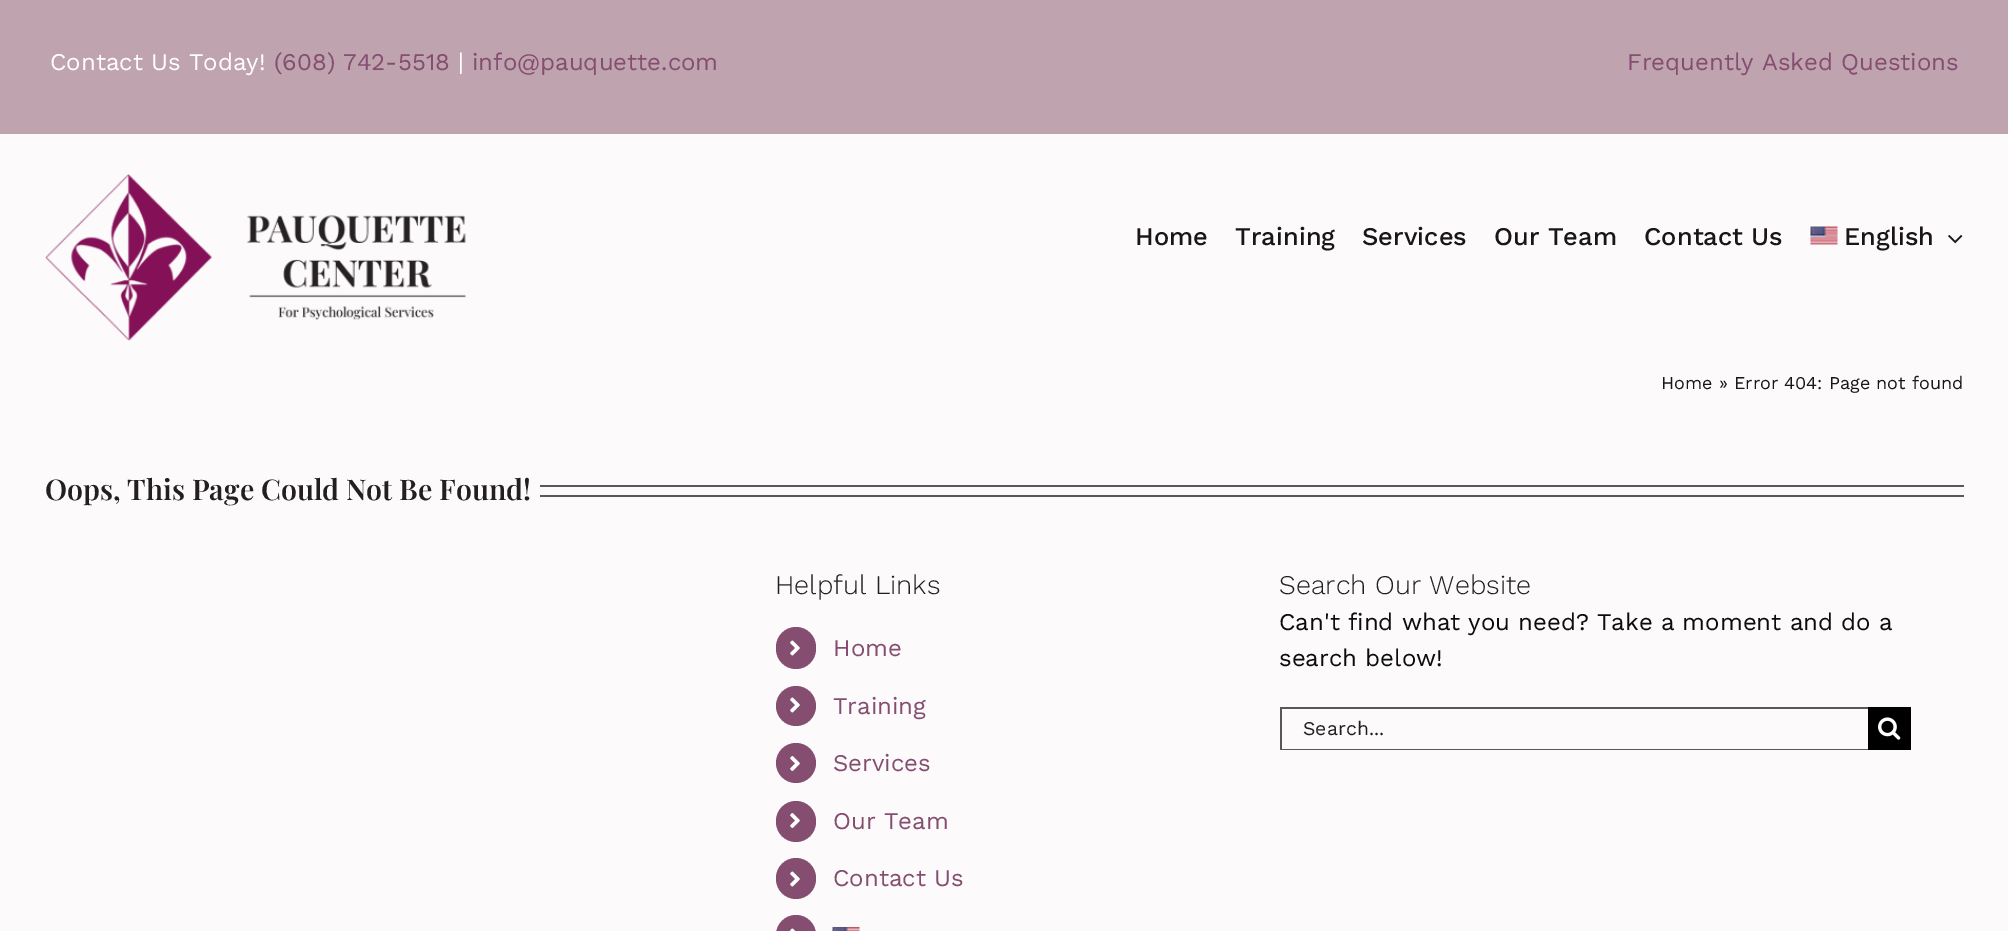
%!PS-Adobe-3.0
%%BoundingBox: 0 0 2008 931
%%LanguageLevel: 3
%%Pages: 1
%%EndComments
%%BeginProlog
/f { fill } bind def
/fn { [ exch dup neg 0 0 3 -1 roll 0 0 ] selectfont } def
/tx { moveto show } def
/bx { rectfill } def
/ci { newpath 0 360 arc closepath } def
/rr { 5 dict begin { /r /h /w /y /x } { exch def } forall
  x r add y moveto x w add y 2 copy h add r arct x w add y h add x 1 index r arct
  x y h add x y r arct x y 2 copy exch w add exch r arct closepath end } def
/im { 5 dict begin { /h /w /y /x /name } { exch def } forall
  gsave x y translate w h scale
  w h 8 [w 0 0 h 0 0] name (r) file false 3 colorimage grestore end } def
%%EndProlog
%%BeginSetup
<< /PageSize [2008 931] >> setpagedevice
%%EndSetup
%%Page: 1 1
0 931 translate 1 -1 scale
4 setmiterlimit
0.988 0.98 0.984 setrgbcolor
0 0 2008 931 bx
0.749 0.639 0.686 setrgbcolor
0 0 2008 134 bx
/WorkSans-Regular 24 fn
1 setgray
(Contact Us Today!) 50 70 tx
0.522 0.302 0.435 setrgbcolor
(\(608\) 742-5518) 274 70 tx
1 setgray
(|) 458 70 tx
0.522 0.302 0.435 setrgbcolor
(info@pauquette.com) 472 70 tx
(Frequently Asked Questions) 1627 70 tx
(image0.raw) 45 174 421 167 im
/WorkSans-Medium 25.5 fn
0.102 0.086 0.09 setrgbcolor
(Home) 1135 245 tx
(Training) 1235 245 tx
(Services) 1362 245 tx
(Our Team) 1494 245 tx
(Contact Us) 1644 245 tx
(image1.raw) 1810 226 28 19 im
(English) 1844 245 tx
(image2.raw) 1948 235 15 9 im
/WorkSans-Regular 18 fn
(Home » Error 404: Page not found) 1661 389 tx
/PlayfairDisplay-SemiBold 28.5 fn
0.137 0.122 0.125 setrgbcolor
(Oops, This Page Could Not Be Found!) 45 500 tx
0.349 0.341 0.345 setrgbcolor
540 485 1424 2 bx
540 495 1424 2 bx
/WorkSans-Light 27 fn
0.137 0.122 0.125 setrgbcolor
(Helpful Links) 775 594 tx
0.522 0.302 0.435 setrgbcolor
776 627 40 42 20 rr f
(image3.raw) 790 640 10 16 im
/WorkSans-Regular 24 fn
(Home) 833 656 tx
796 706 20 ci f
(image3.raw) 790 697 10 16 im
(Training) 833 714 tx
796 763 20 ci f
(image4.raw) 790 756 10 15 im
(Services) 833 771 tx
776 801 40 41 20 rr f
(image4.raw) 790 813 10 15 im
(Our Team) 833 829 tx
776 858 40 41 20 rr f
(image3.raw) 790 871 10 16 im
(Contact Us) 833 886 tx
776 915 40 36 20 rr f
(image5.raw) 790 928 6 3 im
(image6.raw) 832 927 28 4 im
/WorkSans-Light 27 fn
0.137 0.122 0.125 setrgbcolor
(Search Our Website) 1279 594 tx
/WorkSans-Regular 24 fn
0.039 0.047 0.051 setrgbcolor
(Can't find what you need? Take a moment and do a) 1279 630 tx
(search below!) 1279 666 tx
0.349 0.341 0.345 setrgbcolor
1280 707 588 2 bx
1280 749 588 1 bx
1280 707 2 43 bx
/WorkSans-Regular 19.5 fn
0.137 0.122 0.125 setrgbcolor
(Search...) 1303 735 tx
0 setgray
1868 707 43 43 bx
(image7.raw) 1878 717 23 23 im
showpage
%%EOF
